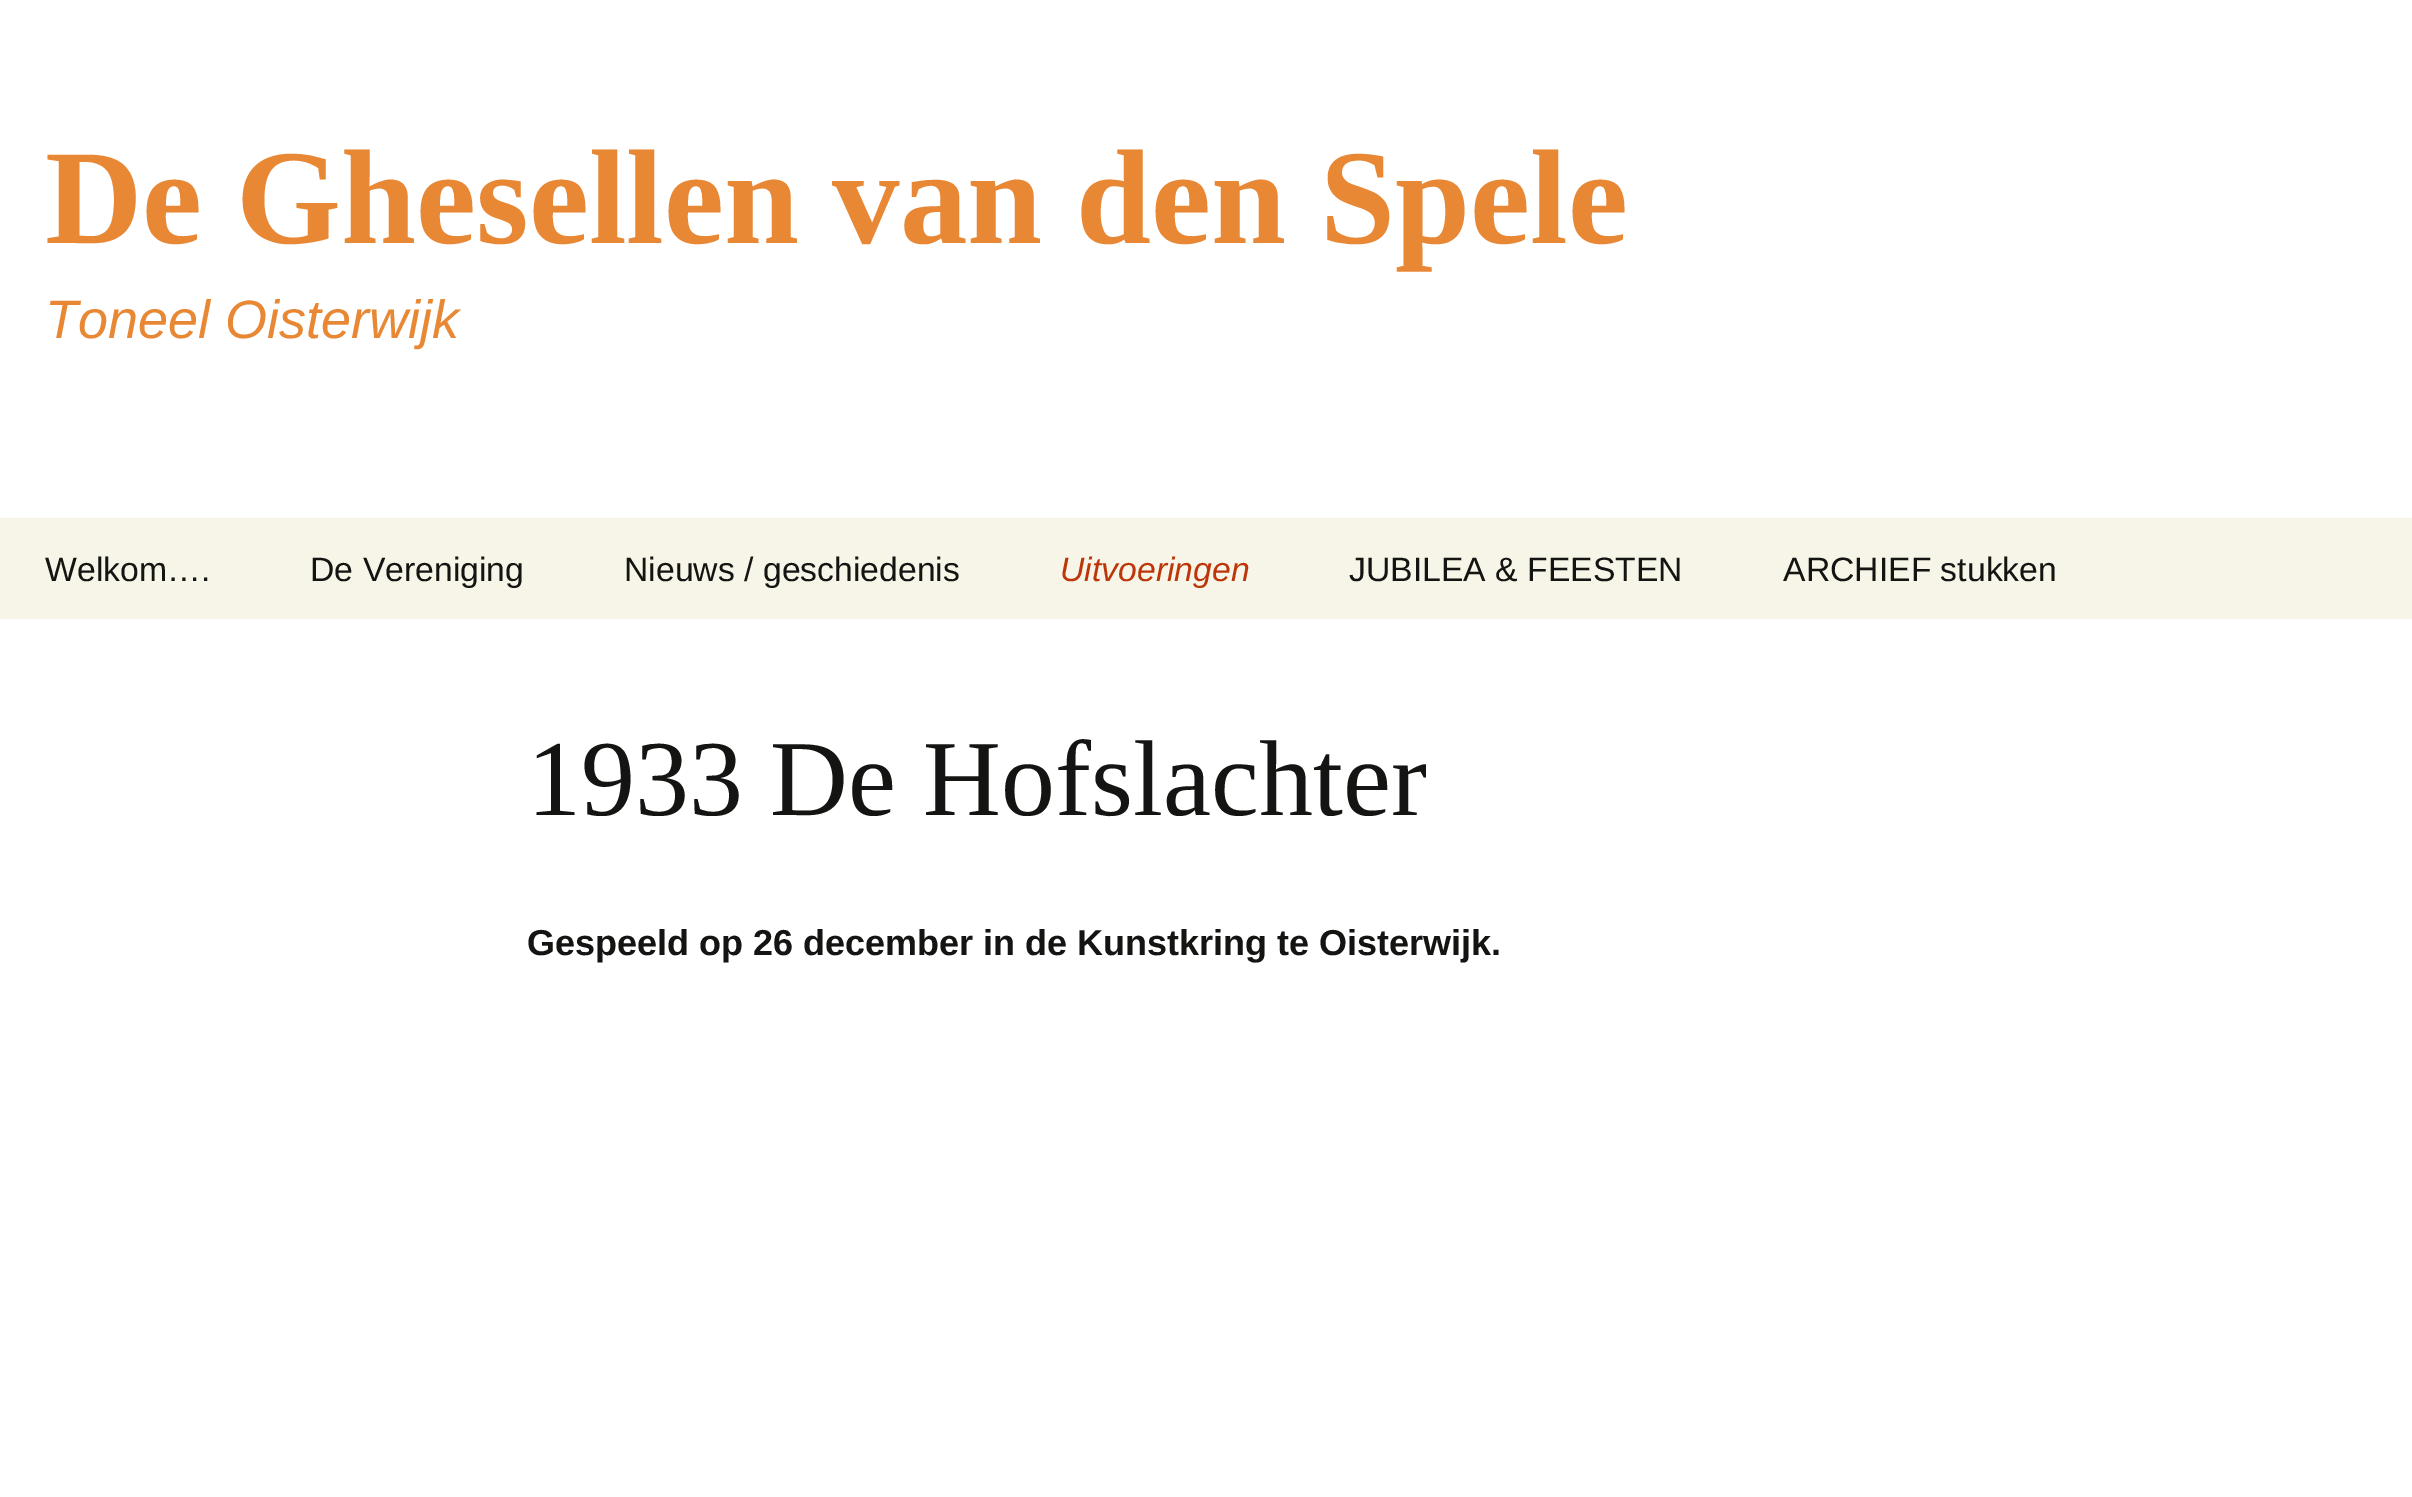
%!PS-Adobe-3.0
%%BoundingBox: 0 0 2412 1497
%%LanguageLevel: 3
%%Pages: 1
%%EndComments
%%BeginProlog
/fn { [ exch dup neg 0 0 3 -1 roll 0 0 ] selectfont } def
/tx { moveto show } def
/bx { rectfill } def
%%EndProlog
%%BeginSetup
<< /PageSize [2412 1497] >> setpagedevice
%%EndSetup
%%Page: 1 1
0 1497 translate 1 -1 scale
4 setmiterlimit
1 setgray
0 0 2412 1497 bx
/LiberationSerif-Bold 135 fn
0.91 0.533 0.208 setrgbcolor
(De Ghesellen van den Spele) 45 243 tx
/LiberationSans-Italic 54 fn
(Toneel Oisterwijk) 45 338 tx
0.969 0.961 0.906 setrgbcolor
0 518 2412 101 bx
/LiberationSans-Regular 33.75 fn
0.078 0.078 0.071 setrgbcolor
(Welkom….) 45 581 tx
(De Vereniging) 310 581 tx
(Nieuws / geschiedenis) 624 581 tx
/LiberationSans-Italic 33.75 fn
0.737 0.212 0.039 setrgbcolor
(Uitvoeringen) 1060 581 tx
/LiberationSans-Regular 33.75 fn
0.078 0.078 0.071 setrgbcolor
(JUBILEA & FEESTEN) 1349 581 tx
(ARCHIEF stukken) 1783 581 tx
/LiberationSerif-Regular 108 fn
(1933 De Hofslachter) 527 815 tx
/LiberationSans-Bold 36 fn
(Gespeeld op 26 december in de Kunstkring te Oisterwijk.) 527 955 tx
showpage
%%EOF
